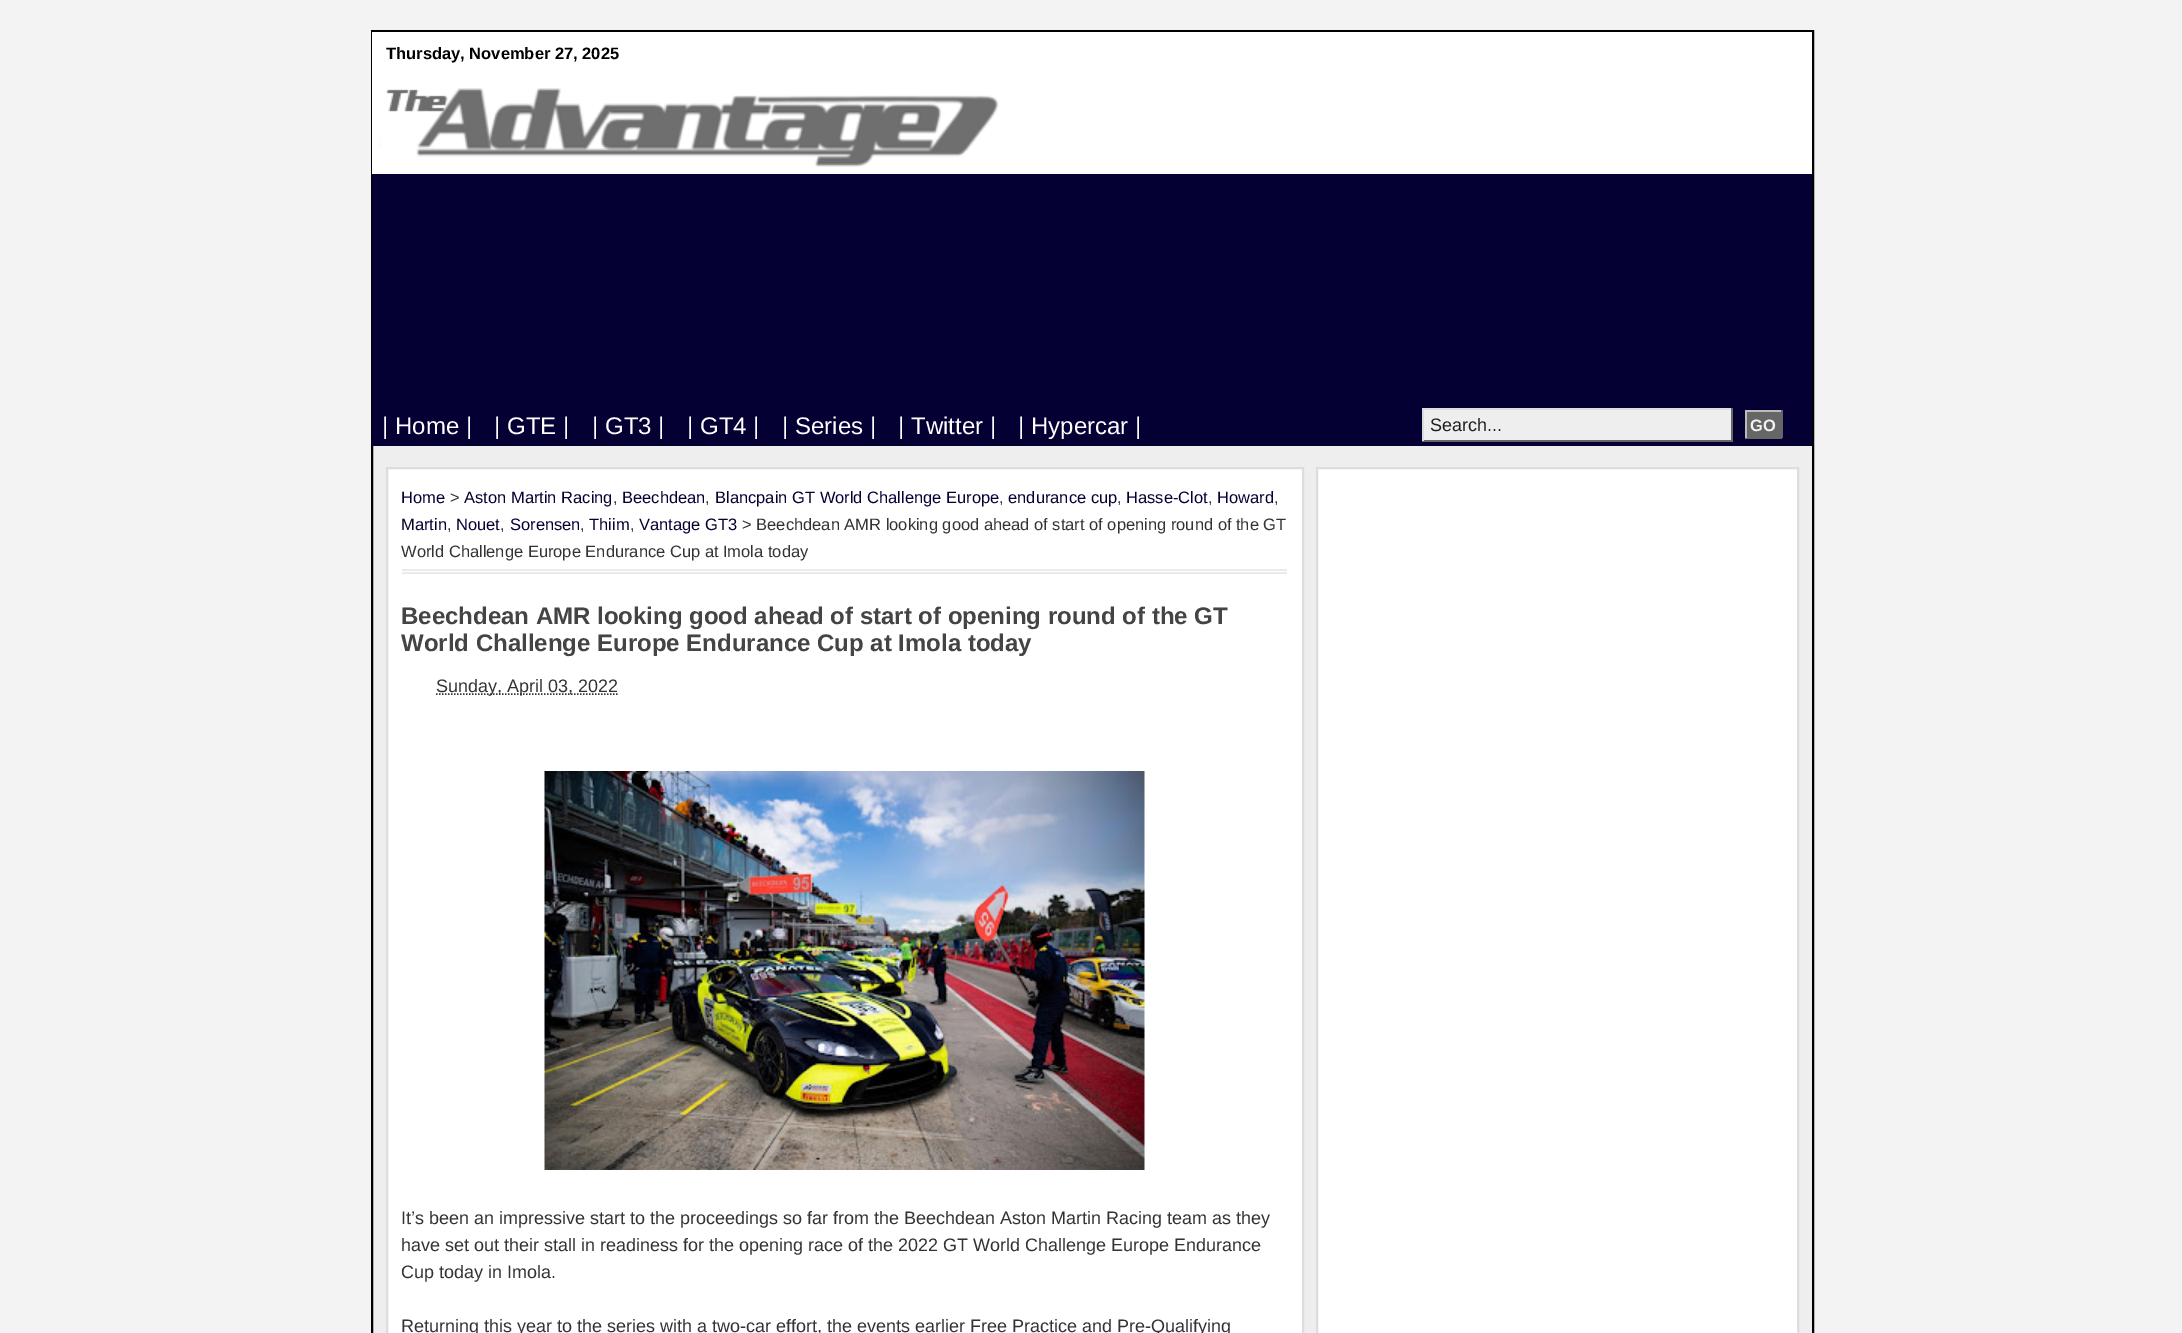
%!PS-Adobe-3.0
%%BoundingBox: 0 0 2182 1333
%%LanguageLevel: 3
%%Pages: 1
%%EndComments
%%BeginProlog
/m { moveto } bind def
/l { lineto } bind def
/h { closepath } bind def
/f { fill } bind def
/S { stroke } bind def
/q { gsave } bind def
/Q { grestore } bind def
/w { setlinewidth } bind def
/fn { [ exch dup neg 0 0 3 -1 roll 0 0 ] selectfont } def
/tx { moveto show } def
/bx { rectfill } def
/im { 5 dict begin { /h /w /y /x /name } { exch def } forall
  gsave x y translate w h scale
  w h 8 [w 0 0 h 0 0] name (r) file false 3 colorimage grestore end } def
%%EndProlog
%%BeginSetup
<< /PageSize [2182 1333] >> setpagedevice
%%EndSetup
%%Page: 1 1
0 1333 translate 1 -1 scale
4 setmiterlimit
0.953 setgray
0 0 2182 1333 bx
0.933 setgray
373 446 1439 887 bx
0 setgray
2 w
372 31 1441 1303 rectstroke
1 setgray
372 32 1440 142 bx
/LiberationSans-Bold 16.5 fn
0 setgray
(Thursday, November 27, 2025) 386 59 tx
(image0.raw) 379 88 620 79 im
0.02 0 0.2 setrgbcolor
372 174 1440 272 bx
/LiberationSans-Regular 24 fn
1 setgray
(| Home |) 382 434 tx
(| GTE |) 494 434 tx
(| GT3 |) 592 434 tx
(| GT4 |) 687 434 tx
(| Series |) 782 434 tx
(| Twitter |) 898 434 tx
(| Hypercar |) 1018 434 tx
0.933 setgray
1424 410 307 30 bx
0.867 setgray
1422 408 311 2 bx
0.4 setgray
1731 408 2 33 bx
1422 440 311 2 bx
0.867 setgray
1422 408 2 33 bx
/LiberationSans-Regular 18 fn
0.125 setgray
(Search...) 1430 431 tx
0.4 setgray
1747 412 34 25 bx
0.733 setgray
1745 410 37 2 bx
0.4 setgray
1781 410 2 28 bx
1745 437 37 2 bx
0.733 setgray
1745 410 2 28 bx
/LiberationSans-Bold 16.5 fn
0.953 setgray
(GO) 1750 431 tx
1 setgray
387 468 m 1303 468 l 1303 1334 l 387 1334 l h q f Q
0.867 setgray
S
0.918 setgray
402 569 885 2 bx
402 572 885 2 bx
/LiberationSans-Regular 16.5 fn
0.02 0 0.2 setrgbcolor
(Home) 401 503 tx
0.2 setgray
(>) 450 503 tx
0.02 0 0.2 setrgbcolor
(Aston Martin Racing) 464 503 tx
(Beechdean) 622 503 tx
(Blancpain GT World Challenge Europe) 715 503 tx
(endurance cup) 1008 503 tx
(Hasse-Clot) 1126 503 tx
(Howard) 1217 503 tx
0.2 setgray
(,) 613 503 tx
(,) 705 503 tx
(,) 999 503 tx
(,) 1117 503 tx
(,) 1208 503 tx
(,) 1274 503 tx
0.02 0 0.2 setrgbcolor
(Martin) 401 530 tx
0.2 setgray
(,) 447 530 tx
0.02 0 0.2 setrgbcolor
(Nouet) 456 530 tx
0.2 setgray
(,) 500 530 tx
0.02 0 0.2 setrgbcolor
(Sorensen) 510 530 tx
0.2 setgray
(,) 580 530 tx
0.02 0 0.2 setrgbcolor
(Thiim) 589 530 tx
0.2 setgray
(,) 630 530 tx
0.02 0 0.2 setrgbcolor
(Vantage GT3) 639 530 tx
0.2 setgray
(> Beechdean AMR looking good ahead of start of opening round of the GT) 742 530 tx
(World Challenge Europe Endurance Cup at Imola today) 401 557 tx
/LiberationSans-Bold 24 fn
0.267 setgray
(Beechdean AMR looking good ahead of start of opening round of the GT) 401 624 tx
(World Challenge Europe Endurance Cup at Imola today) 401 651 tx
0.2 setgray
1.5 w
[1.5 1.5] 0 setdash
436 694 m 618 694 l S
/LiberationSans-Regular 18 fn
(Sunday, April 03, 2022) 436 692 tx
(image1.raw) 544 771 601 399 im
(It’s been an impressive start to the proceedings so far from the Beechdean Aston Martin Racing team as they) 401 1224 tx
(have set out their stall in readiness for the opening race of the 2022 GT World Challenge Europe Endurance) 401 1251 tx
(Cup today in Imola.) 401 1278 tx
(Returning this year to the series with a two-car effort, the events earlier Free Practice and Pre-Qualifying) 401 1332 tx
1 setgray
1317 468 m 1798 468 l 1798 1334 l 1317 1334 l h q f Q
0.867 setgray
2 w
[] 0 setdash
S
showpage
%%EOF
